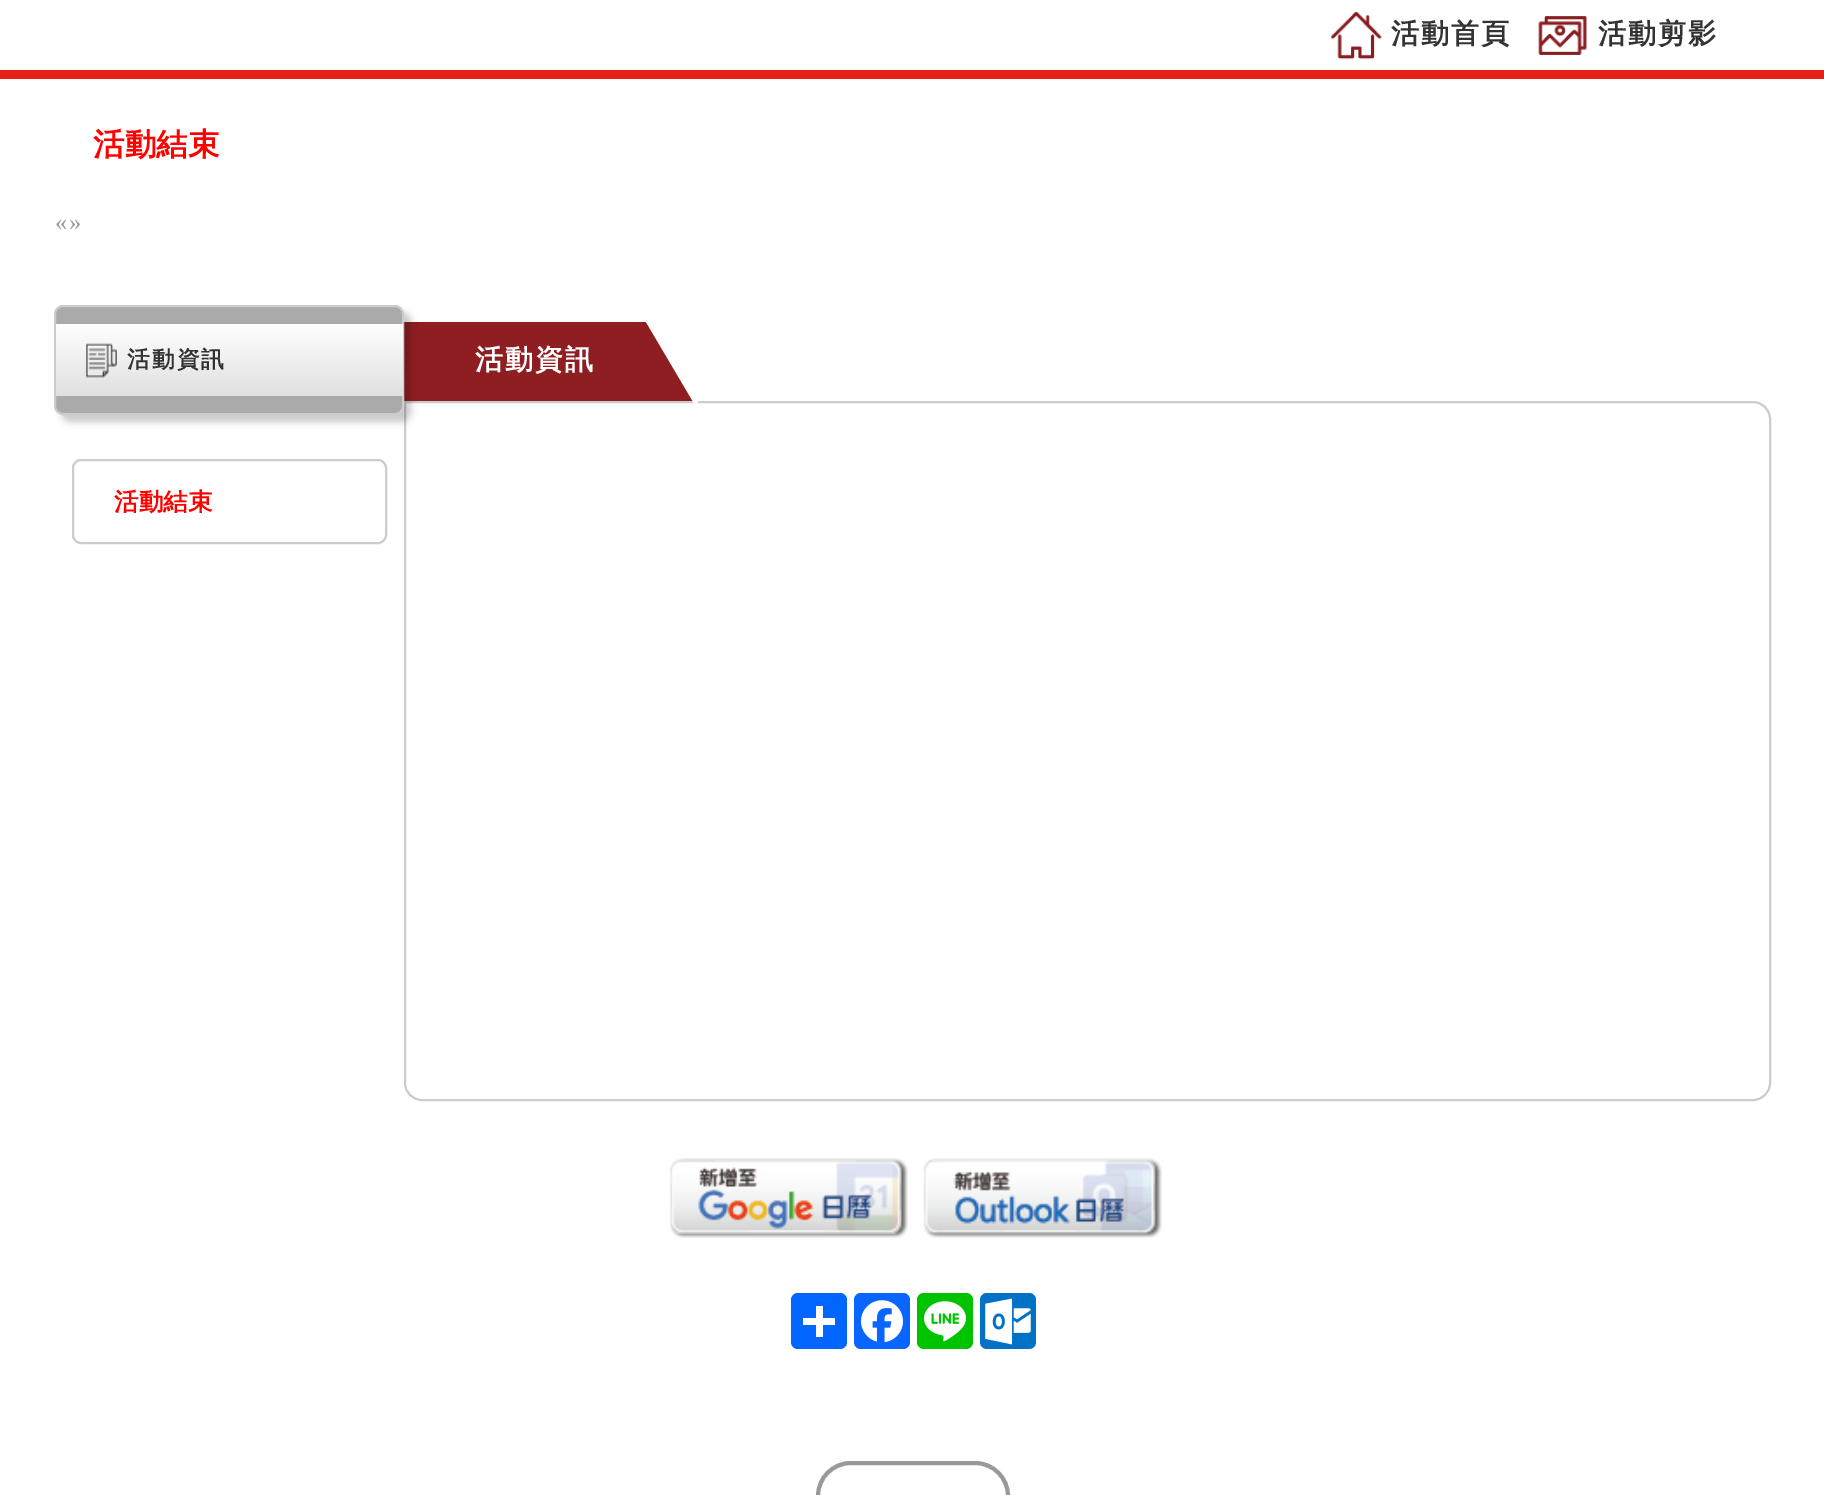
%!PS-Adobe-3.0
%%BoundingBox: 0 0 1824 1495
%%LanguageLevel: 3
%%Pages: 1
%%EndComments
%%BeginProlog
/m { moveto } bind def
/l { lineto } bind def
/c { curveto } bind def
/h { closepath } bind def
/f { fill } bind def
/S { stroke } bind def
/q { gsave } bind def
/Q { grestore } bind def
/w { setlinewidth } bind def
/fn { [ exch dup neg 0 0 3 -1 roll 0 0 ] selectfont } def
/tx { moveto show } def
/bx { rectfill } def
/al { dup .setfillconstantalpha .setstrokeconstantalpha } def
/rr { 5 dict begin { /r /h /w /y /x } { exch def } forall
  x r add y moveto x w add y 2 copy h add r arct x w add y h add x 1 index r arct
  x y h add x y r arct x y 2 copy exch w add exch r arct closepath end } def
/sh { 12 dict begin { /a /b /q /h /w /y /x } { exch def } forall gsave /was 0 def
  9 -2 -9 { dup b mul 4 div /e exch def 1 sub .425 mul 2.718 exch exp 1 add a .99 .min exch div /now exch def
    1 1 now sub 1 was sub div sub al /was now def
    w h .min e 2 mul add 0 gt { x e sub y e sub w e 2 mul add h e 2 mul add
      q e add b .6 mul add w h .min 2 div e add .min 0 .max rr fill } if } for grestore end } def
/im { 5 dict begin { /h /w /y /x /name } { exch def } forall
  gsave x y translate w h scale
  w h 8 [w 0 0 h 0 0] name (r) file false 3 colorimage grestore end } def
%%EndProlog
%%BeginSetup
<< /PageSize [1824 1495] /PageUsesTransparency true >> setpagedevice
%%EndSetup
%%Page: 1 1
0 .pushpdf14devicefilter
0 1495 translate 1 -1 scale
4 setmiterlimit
1 setgray
0 0 1824 1495 bx
0.906 0.122 0.098 setrgbcolor
0 70 1824 9 bx
(image0.raw) 1331 11 51 49 im
/WenQuanYiZenHei-Bold 28 fn
0.2 setgray
1391 43 m 2 0 (活動首頁) ashow
(image1.raw) 1538 16 49 39 im
1598 43 m 2 0 (活動剪影) ashow
/WenQuanYiZenHei-Bold 31.5 fn
1 0 0 setrgbcolor
(活動結束) 93 155 tx
/LiberationSerif-Regular 24.5 fn
0.6 setgray
55 230 m 2 0 («») ashow
0.557 0.118 0.133 setrgbcolor
404 322 289 79 bx
0.8 setgray
2 w
405 402 m 1753 402 l 1762.5 402 1770 409.5 1770 419 c 1770 1083 l 1770 1092.5 1762.5 1100 1753 1100 c 422 1100 l 412.5 1100 405 1092.5 405 1083 c h S
0 setgray
61 312 350 110 9 3.5 0.2 sh
0.667 setgray
55 306 348 108 8 rr q f Q
0.8 setgray
S
q 56 324 m 403 324 l 403 396 l 56 396 l h clip newpath
<< /ShadingType 2 /ColorSpace /DeviceRGB /Coords [229 324 229 396] /Extend [true true] /Function << /FunctionType 2 /Domain [0 1] /C0 [1 1 1] /C1 [0.878 0.878 0.878] /N 1 >> >> shfill Q
(image2.raw) 86 343 31 35 im
/WenQuanYiZenHei-Bold 22.75 fn
0.2 setgray
127 367 m 2 0 (活動資訊) ashow
0.8 setgray
73 460 313 83 8 rr S
/WenQuanYiZenHei-Bold 24.5 fn
1 0 0 setrgbcolor
(活動結束) 114 510 tx
/WenQuanYiZenHei-Bold 28 fn
1 setgray
475 369 m 2 0 (活動資訊) ashow
646 322 m 698 322 l 698 410 l h f
(image3.raw) 670 1158 238 80 im
(image4.raw) 923 1158 239 80 im
0.004 0.4 1 setrgbcolor
791 1293 56 56 7 rr f
1 setgray
816 1306 7 31 bx
803 1318 32 7 bx
0.031 0.4 1 setrgbcolor
854 1293 56 56 7 rr f
(image5.raw) 861 1300 42 43 im
0 0.765 0 setrgbcolor
917 1293 56 56 7 rr f
(image6.raw) 924 1301 42 41 im
0 0.447 0.776 setrgbcolor
980 1293 56 56 7 rr f
(image7.raw) 985 1298 46 47 im
0.6 setgray
4 w
818 1463 190 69 33 rr S
.poppdf14devicefilter showpage
%%EOF
